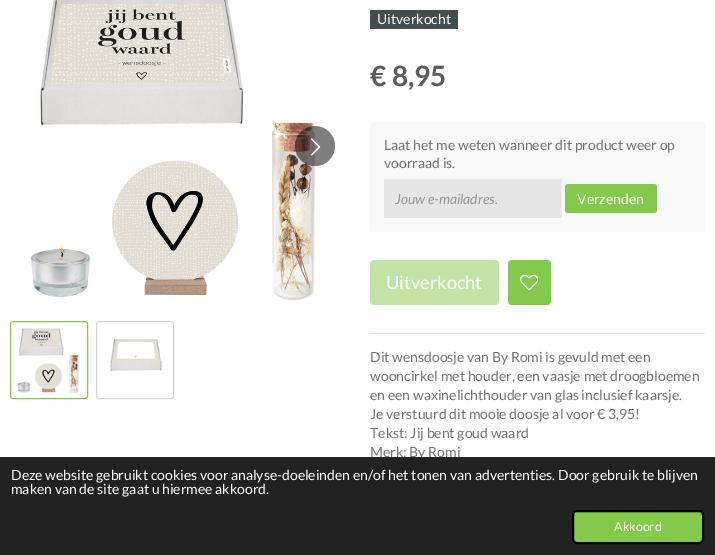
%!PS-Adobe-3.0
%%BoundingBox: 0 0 715 555
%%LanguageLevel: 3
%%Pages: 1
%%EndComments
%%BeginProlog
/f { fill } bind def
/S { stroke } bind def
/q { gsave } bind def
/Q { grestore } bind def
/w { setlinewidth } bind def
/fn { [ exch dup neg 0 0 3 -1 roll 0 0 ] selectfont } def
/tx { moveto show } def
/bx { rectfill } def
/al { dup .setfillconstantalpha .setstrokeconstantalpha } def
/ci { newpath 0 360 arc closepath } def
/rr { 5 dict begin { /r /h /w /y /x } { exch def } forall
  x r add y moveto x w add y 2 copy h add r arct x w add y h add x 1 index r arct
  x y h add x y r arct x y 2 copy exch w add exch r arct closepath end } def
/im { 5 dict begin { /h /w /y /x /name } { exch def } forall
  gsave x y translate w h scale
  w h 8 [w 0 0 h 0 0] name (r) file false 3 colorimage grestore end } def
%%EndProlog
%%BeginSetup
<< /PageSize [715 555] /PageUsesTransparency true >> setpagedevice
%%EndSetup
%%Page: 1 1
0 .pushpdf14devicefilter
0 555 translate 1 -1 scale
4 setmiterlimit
1 setgray
0 0 715 555 bx
(image0.raw) 30 0 286 301 im
0.5 al
0 setgray
315 146 20 ci f
1 al
(image1.raw) 311 138 10 18 im
0.51 0.788 0.298 setrgbcolor
10.5 321.5 77 77 2.5 rr S
(image2.raw) 17 328 62 66 im
0.835 setgray
96.5 321.5 77 77 2.5 rr S
(image3.raw) 110 339 52 32 im
0.259 0.298 0.318 setrgbcolor
370 10 88 19 bx
/Lato-Regular 14 fn
1 setgray
(Uitverkocht) 377 24 tx
/Lato-Bold 28 fn
0.361 setgray
(€ 8,95) 370 86 tx
0.973 setgray
370 122 335 110 3 rr f
/Lato-Regular 14 fn
0.451 setgray
(Laat het me weten wanneer dit product weer op) 384 150 tx
(voorraad is.) 384 168 tx
0.902 setgray
384 179 178 39 2 rr f
/Lato-Italic 14 fn
0.588 setgray
(Jouw e-mailadres.) 395 204 tx
0.51 0.788 0.298 setrgbcolor
565 184 92 29 3 rr f
/Lato-Regular 14 fn
1 setgray
(Verzenden) 577 204 tx
0.757 0.894 0.651 setrgbcolor
370 260 129 45 4 rr f
/Lato-Regular 18.25 fn
1 setgray
(Uitverkocht) 386 289 tx
0.51 0.788 0.298 setrgbcolor
508 260 43 45 4 rr f
(image4.raw) 520 274 19 17 im
0.89 setgray
370 333 335 1 bx
/Lato-Regular 14 fn
0.451 setgray
(Dit wensdoosje van By Romi is gevuld met een) 370 362 tx
(wooncirkel met houder, een vaasje met droogbloemen) 370 381 tx
(en een waxinelichthouder van glas inclusief kaarsje.) 370 400 tx
(Je verstuurd dit mooie doosje al voor € 3,95!) 370 419 tx
(Tekst: Jij bent goud waard) 370 438 tx
(Merk: By Romi) 370 457 tx
0.133 setgray
0 457 715 98 bx
1 setgray
(Deze website gebruikt cookies voor analyse-doeleinden en/of het tonen van advertenties. Door gebruik te blijven) 11 480 tx
(maken van de site gaat u hiermee akkoord.) 11 494 tx
0.51 0.788 0.298 setrgbcolor
573 511 130 32 4 rr q f Q
0 setgray
2 w
S
/Lato-Regular 12.5 fn
1 setgray
(Akkoord) 614 531 tx
.poppdf14devicefilter showpage
%%EOF
